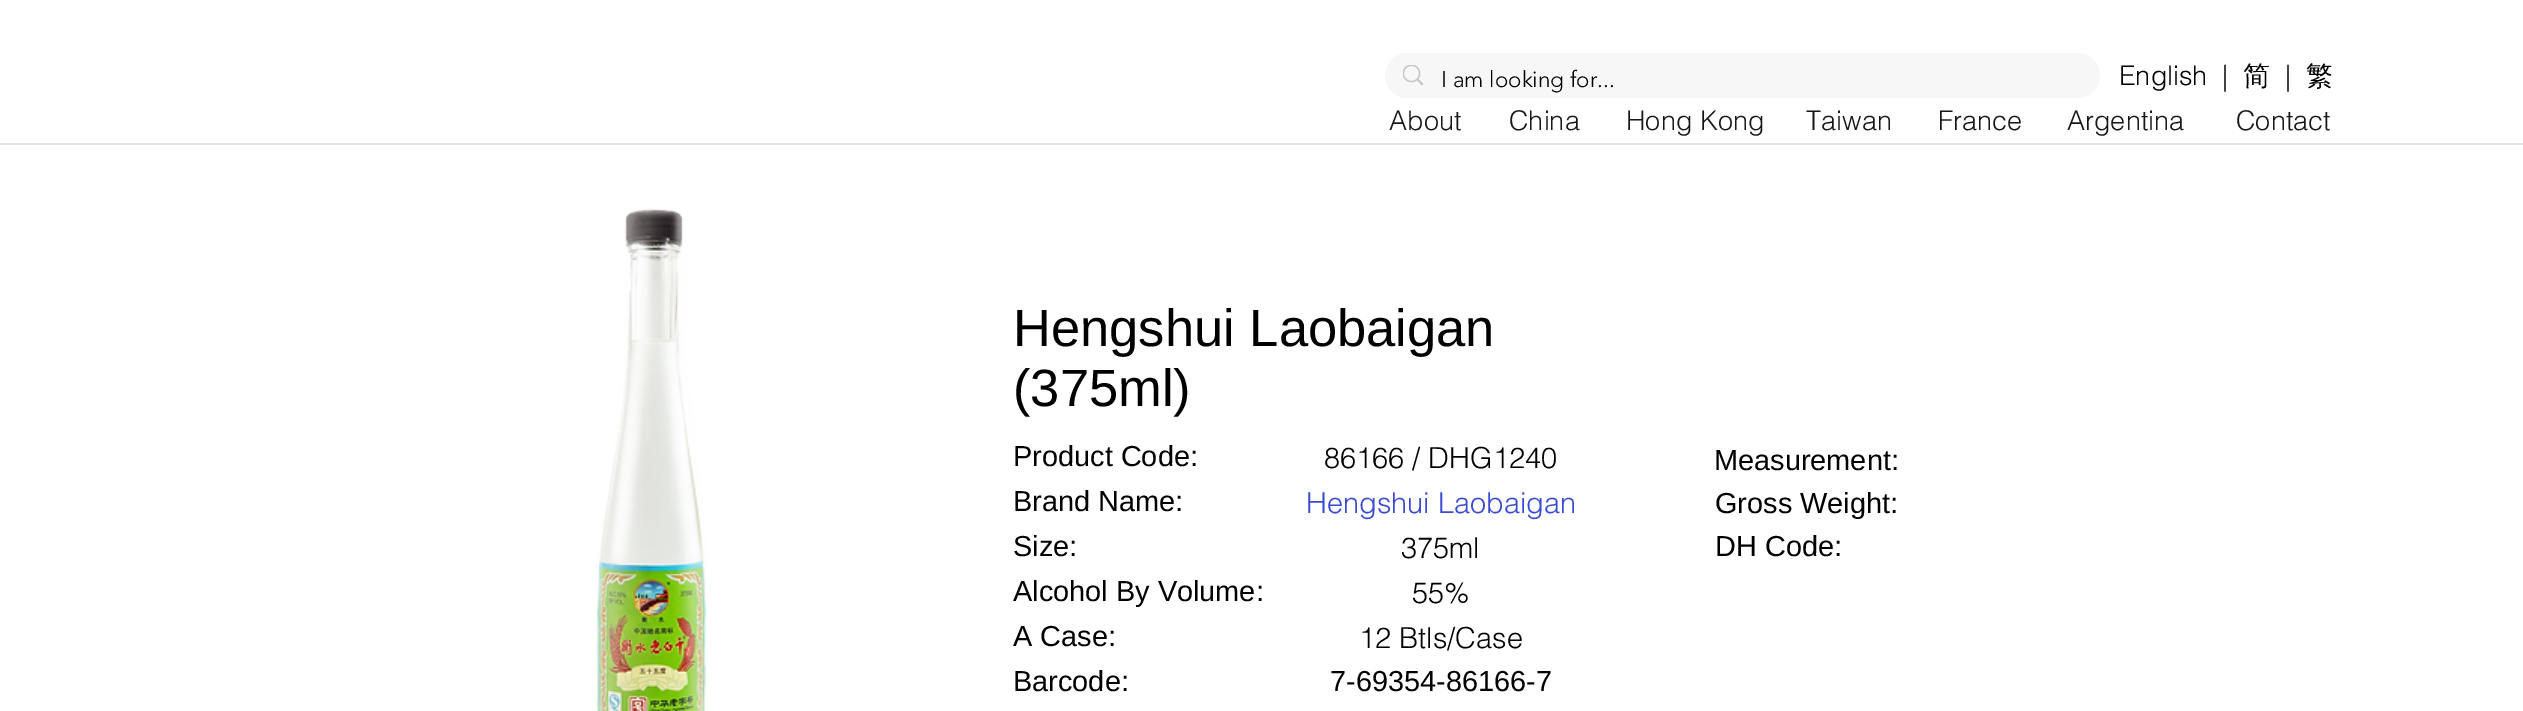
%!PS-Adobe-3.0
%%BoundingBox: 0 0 2523 711
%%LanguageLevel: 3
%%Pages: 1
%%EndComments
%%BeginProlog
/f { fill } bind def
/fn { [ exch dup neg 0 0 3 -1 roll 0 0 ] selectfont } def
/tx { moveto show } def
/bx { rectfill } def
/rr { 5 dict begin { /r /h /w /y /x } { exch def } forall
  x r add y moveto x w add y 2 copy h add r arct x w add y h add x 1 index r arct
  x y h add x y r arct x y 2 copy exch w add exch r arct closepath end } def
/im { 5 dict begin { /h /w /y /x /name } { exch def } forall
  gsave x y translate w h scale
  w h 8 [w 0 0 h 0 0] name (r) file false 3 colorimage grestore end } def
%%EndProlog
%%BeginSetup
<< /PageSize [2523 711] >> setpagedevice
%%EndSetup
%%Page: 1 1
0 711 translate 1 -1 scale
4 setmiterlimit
1 setgray
0 0 2523 711 bx
0.969 setgray
1385 53 715 45 22.5 rr f
(image0.raw) 1403 65 21 21 im
/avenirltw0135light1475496-Light 22.5 fn
0 setgray
(I am looking for...) 1441 87 tx
/helvetica-Light 27 fn
(English) 2119 85 tx
(|) 2222 85 tx
/WenQuanYiZenHei-Medium 27 fn
(简) 2243 85 tx
/helvetica-Light 27 fn
(|) 2285 85 tx
/WenQuanYiZenHei-Medium 27 fn
(繁) 2306 85 tx
/helvetica-Light 27 fn
0.094 setgray
(About) 1389 130 tx
(China) 1509 130 tx
(Hong Kong) 1626 130 tx
(Taiwan) 1806 130 tx
(France) 1938 130 tx
(Argentina) 2067 130 tx
(Contact) 2236 130 tx
0.902 0.902 0.914 setrgbcolor
0 143 2523 2 bx
(image1.raw) 596 208 111 503 im
/LiberationSans-Regular 52.5 fn
0 setgray
(Hengshui Laobaigan) 1013 346 tx
(\(375ml\)) 1013 406 tx
/LiberationSans-Regular 28.9 fn
(Product Code:) 1013 466 tx
/helvetica-Light 28.9 fn
(86166 / DHG1240) 1324 468 tx
/LiberationSans-Regular 28.9 fn
(Brand Name:) 1013 511 tx
/helvetica-Light 28.9 fn
0.22 0.29 0.827 setrgbcolor
(Hengshui Laobaigan) 1306 513 tx
/LiberationSans-Regular 28.9 fn
0 setgray
(Size:) 1013 556 tx
/helvetica-Light 28.9 fn
(375ml) 1401 558 tx
/LiberationSans-Regular 28.9 fn
(Alcohol By Volume:) 1013 601 tx
/helvetica-Light 28.9 fn
(55%) 1412 603 tx
/LiberationSans-Regular 28.9 fn
(A Case:) 1013 646 tx
/helvetica-Light 28.9 fn
(12 Btls/Case) 1359 648 tx
/LiberationSans-Regular 28.9 fn
(Barcode:) 1013 691 tx
(7-69354-86166-7) 1330 691 tx
(Measurement:) 1714 470 tx
(Gross Weight:) 1715 513 tx
(DH Code:) 1715 556 tx
showpage
%%EOF
